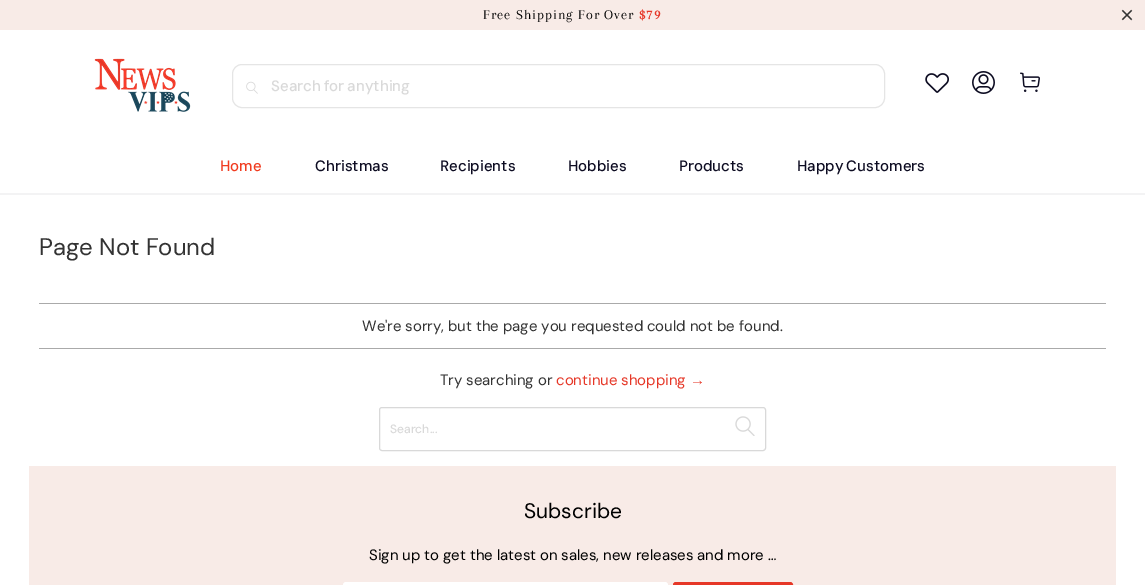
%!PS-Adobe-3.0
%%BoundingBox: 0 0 1145 585
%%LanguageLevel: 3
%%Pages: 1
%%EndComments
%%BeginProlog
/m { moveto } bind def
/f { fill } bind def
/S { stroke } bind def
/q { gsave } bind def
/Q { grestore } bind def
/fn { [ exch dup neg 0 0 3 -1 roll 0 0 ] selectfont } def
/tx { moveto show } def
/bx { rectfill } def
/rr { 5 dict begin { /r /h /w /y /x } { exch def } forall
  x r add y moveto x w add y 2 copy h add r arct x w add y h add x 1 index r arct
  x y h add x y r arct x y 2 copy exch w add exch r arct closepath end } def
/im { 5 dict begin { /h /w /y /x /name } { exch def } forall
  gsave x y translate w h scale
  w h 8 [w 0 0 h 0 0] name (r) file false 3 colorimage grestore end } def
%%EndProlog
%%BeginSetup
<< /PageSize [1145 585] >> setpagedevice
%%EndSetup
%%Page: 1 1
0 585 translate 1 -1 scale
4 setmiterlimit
1 setgray
0 0 1145 585 bx
0.973 0.922 0.906 setrgbcolor
0 0 1145 30 bx
/Arapey-Regular 14 fn
0 setgray
483 19 m 1 0 (Free Shipping For Over) ashow
/Arapey-Bold 14 fn
0.902 0.216 0.153 setrgbcolor
639 19 m 1 0 ($79) ashow
/LiberationSans-Regular 24 fn
0.2 setgray
(×) 1120 23 tx
(image0.raw) 94 58 97 54 im
0.898 setgray
232.5 64.5 652 43 9.5 rr S
(image1.raw) 246 81 12 13 im
/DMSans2-Medium 15 fn
0.851 setgray
271 91 m -1 0 32 (Search for anything) widthshow
(image2.raw) 925 73 24 20 im
(image3.raw) 972 71 23 23 im
(image4.raw) 1020 72 20 20 im
0.953 0.953 0.957 setrgbcolor
0 193 1145 2 bx
0.945 0.235 0.125 setrgbcolor
(Home) 220 171 tx
0.051 0.047 0.133 setrgbcolor
(Christmas) 315 171 tx
(Recipients) 440 171 tx
(Hobbies) 568 171 tx
(Products) 679 171 tx
797 171 m -1 0 32 (Happy Customers) widthshow
/DMSans-Regular 24 fn
0.2 setgray
(Page Not Found) 39 255 tx
0.667 setgray
39 303 1067 1 bx
39 348 1067 1 bx
/DMSans2-Regular 15 fn
0.2 setgray
(We're sorry, but the page you requested could not be found.) 362 331 tx
(Try searching or) 440 385 tx
0.902 0.216 0.153 setrgbcolor
(continue shopping) 556 385 tx
/LiberationSans-Regular 15 fn
(→) 690 385 tx
0.851 setgray
379.5 407.5 386 43 2.5 rr S
/DMSans-Medium 12 fn
(Search...) 390 433 tx
(image5.raw) 735 416 20 20 im
0.973 0.922 0.906 setrgbcolor
29 466 1087 119 bx
/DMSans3-Regular 21 fn
0 setgray
(Subscribe) 524 518 tx
/DMSans2-Regular 15 fn
(Sign up to get the latest on sales, new releases and more …) 369 560 tx
1 setgray
343 582 325 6 3 rr f
0.902 0.216 0.153 setrgbcolor
673.5 582.5 119 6 2.5 rr q f Q
S
showpage
%%EOF
